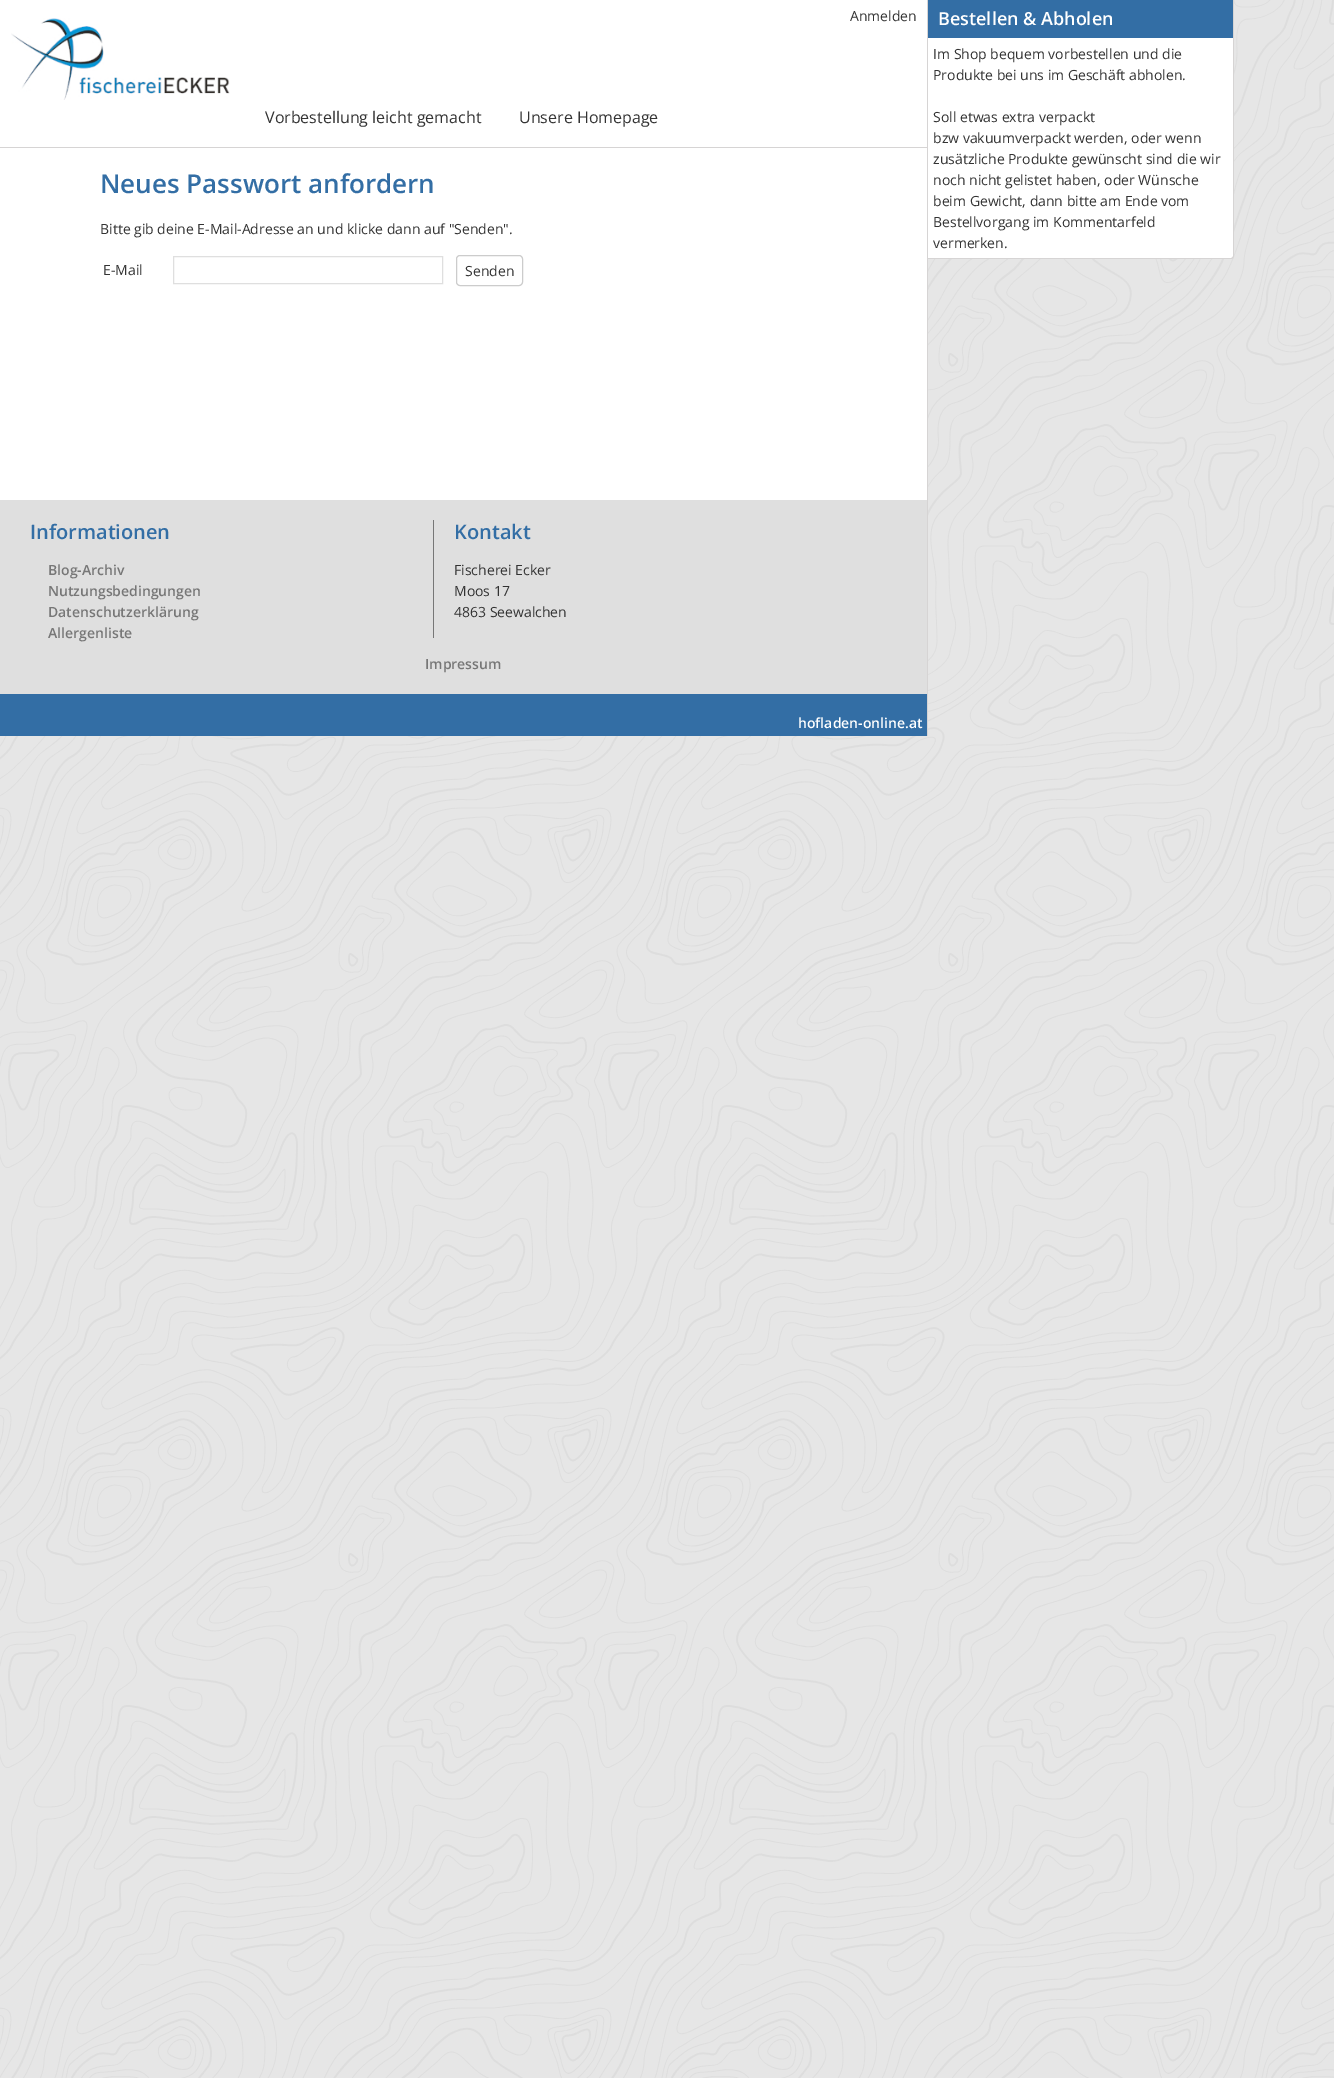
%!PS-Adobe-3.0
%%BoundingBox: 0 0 1334 2078
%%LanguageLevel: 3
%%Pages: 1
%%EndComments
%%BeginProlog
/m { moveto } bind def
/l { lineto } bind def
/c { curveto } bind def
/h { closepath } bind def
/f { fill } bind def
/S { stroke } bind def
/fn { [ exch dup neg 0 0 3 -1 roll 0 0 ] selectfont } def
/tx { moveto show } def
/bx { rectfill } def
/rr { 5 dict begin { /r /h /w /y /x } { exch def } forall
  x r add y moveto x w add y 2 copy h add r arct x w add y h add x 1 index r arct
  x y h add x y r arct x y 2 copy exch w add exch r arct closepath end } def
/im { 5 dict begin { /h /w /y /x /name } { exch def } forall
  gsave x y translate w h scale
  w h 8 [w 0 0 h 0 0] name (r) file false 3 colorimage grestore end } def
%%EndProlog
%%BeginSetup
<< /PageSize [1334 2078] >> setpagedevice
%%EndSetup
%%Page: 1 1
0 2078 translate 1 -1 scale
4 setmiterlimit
0.902 setgray
0 0 1334 2078 bx
(image0.raw) 0 0 1334 2078 im
1 setgray
0 0 927 147 bx
0.839 0.831 0.831 setrgbcolor
927 0 1 736 bx
0 147 928 1 bx
/OpenSans-Regular 14 fn
0.2 setgray
(Anmelden) 850 21 tx
(image1.raw) 11 18 219 82 im
/OpenSans-Regular 16 fn
(Vorbestellung leicht gemacht) 265 123 tx
(Unsere Homepage) 519 123 tx
1 setgray
928 0 m 1234 0 l 1234 256 l 1234 257.5 1232.5 259 1231 259 c 928 259 l h f
0.839 0.831 0.831 setrgbcolor
928 0 m 1234 0 l 1234 256 l 1234 258 1233 259 1231 259 c 928 259 l h 928 0 m 1233 0 l 1233 256 l 1233 257 1232 258 1231 258 c 928 258 l h eofill
0.2 0.431 0.647 setrgbcolor
928 0 305 38 bx
/OpenSans-SemiBold 18 fn
1 setgray
(Bestellen & Abholen) 938 25 tx
/OpenSans-Regular 14 fn
0.2 setgray
(Im Shop bequem vorbestellen und die) 933 59 tx
(Produkte bei uns im Geschäft abholen.) 933 80 tx
(Soll etwas extra verpackt) 933 122 tx
(bzw vakuumverpackt werden, oder wenn) 933 143 tx
(zusätzliche Produkte gewünscht sind die wir) 933 164 tx
(noch nicht gelistet haben, oder Wünsche) 933 185 tx
(beim Gewicht, dann bitte am Ende vom) 933 206 tx
(Bestellvorgang im Kommentarfeld) 933 227 tx
(vermerken.) 933 248 tx
1 setgray
0 148 927 352 bx
/OpenSans-SemiBold 26 fn
0.2 0.431 0.647 setrgbcolor
(Neues Passwort anfordern) 100 193 tx
/OpenSans-Regular 14 fn
0.2 setgray
(Bitte gib deine E-Mail-Adresse an und klicke dann auf "Senden".) 100 234 tx
(E-Mail) 103 275 tx
0.875 setgray
173.5 256.5 269 27 rectstroke
0.8 setgray
456.5 255.5 66 30 3.5 rr S
0.2 setgray
(Senden) 465 276 tx
0.875 setgray
0 500 927 194 bx
/OpenSans-SemiBold 20 fn
0.2 0.431 0.647 setrgbcolor
(Informationen) 30 539 tx
/OpenSans-SemiBold 14 fn
0.467 setgray
(Blog-Archiv) 48 575 tx
(Nutzungsbedingungen) 48 596 tx
(Datenschutzerklärung) 48 617 tx
(Allergenliste) 48 638 tx
433 520 1 118 bx
/OpenSans-SemiBold 20 fn
0.2 0.431 0.647 setrgbcolor
(Kontakt) 454 539 tx
/OpenSans-Regular 14 fn
0.2 setgray
(Fischerei Ecker) 454 575 tx
(Moos 17) 454 596 tx
(4863 Seewalchen) 454 617 tx
/OpenSans-SemiBold 14 fn
0.467 setgray
(Impressum) 425 669 tx
0.2 0.431 0.647 setrgbcolor
0 694 927 42 bx
1 setgray
(hofladen-online.at) 798 728 tx
showpage
%%EOF
